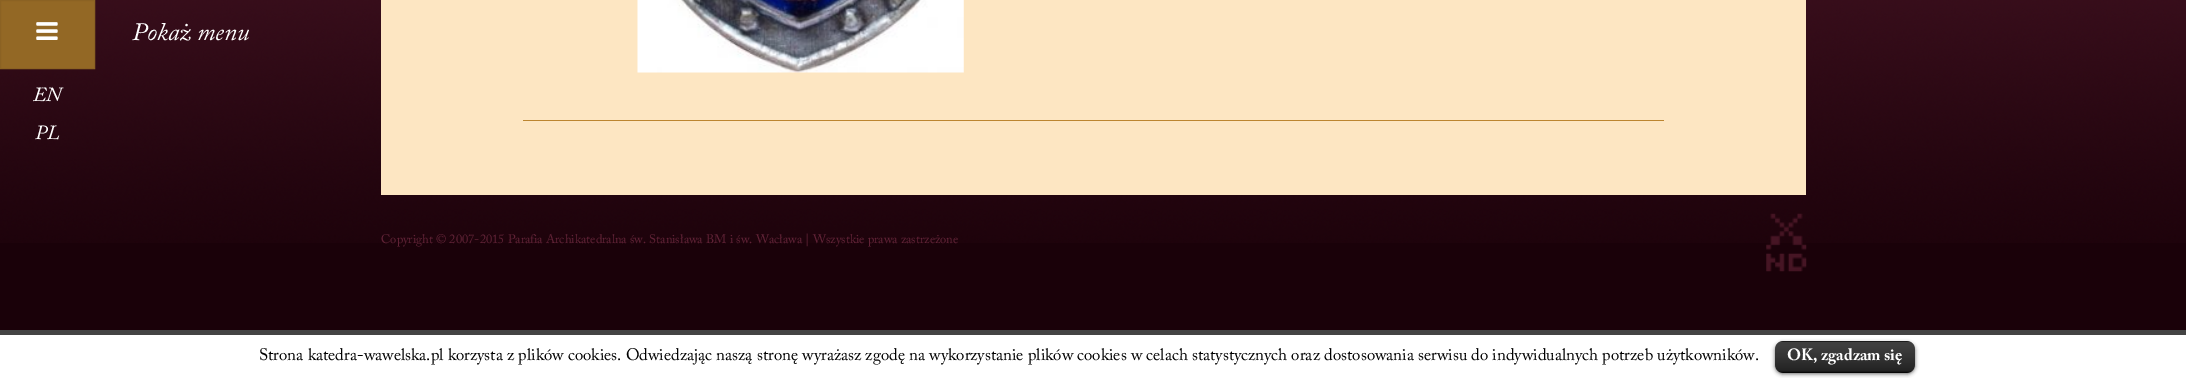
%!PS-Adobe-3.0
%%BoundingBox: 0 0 2186 378
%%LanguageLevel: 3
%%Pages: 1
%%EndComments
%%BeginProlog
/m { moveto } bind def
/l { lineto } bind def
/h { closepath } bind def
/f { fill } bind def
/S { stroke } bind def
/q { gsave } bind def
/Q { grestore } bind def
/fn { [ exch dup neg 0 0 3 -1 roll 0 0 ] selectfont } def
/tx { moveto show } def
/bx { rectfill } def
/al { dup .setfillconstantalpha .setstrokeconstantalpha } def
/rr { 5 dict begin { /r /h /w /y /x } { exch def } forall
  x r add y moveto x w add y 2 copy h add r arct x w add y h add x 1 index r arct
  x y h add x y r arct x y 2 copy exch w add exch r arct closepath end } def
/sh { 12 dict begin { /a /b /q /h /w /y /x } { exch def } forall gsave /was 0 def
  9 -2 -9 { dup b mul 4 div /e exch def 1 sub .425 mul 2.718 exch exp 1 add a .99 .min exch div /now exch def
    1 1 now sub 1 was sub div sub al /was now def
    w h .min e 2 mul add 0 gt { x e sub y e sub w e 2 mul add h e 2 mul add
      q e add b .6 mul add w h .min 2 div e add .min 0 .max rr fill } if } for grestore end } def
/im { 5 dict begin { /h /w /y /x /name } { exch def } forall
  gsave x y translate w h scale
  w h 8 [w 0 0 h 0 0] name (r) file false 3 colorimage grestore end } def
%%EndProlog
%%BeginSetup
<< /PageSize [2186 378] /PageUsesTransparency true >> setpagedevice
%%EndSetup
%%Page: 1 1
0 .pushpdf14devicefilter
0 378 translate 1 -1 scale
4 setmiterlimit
0.102 0.004 0.035 setrgbcolor
0 0 2186 378 bx
(image0.raw) 0 0 2186 243 im
0.576 0.408 0.145 setrgbcolor
0.5 0.5 m 94.5 0.5 l 94.5 68.5 l 0.5 68.5 l h q f Q
0.545 0.384 0.137 setrgbcolor
S
(image1.raw) 36 22 22 18 im
/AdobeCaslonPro-Italic 25 fn
1 setgray
(Pokaż menu) 132 40 tx
/AdobeCaslonPro-Italic 20 fn
(EN) 33 101 tx
(PL) 35 139 tx
0.992 0.902 0.761 setrgbcolor
381 0 1425 195 bx
0.737 0.522 0.184 setrgbcolor
523 120 1141 1 bx
(image2.raw) 637 0 327 73 im
/AdobeCaslonPro-Regular 12.5 fn
0.376 0.133 0.212 setrgbcolor
(Copyright © 2007-2015 Parafia Archikatedralna św. Stanisława BM i św. Wacława | Wszystkie prawa zastrzeżone) 381 243 tx
(image3.raw) 1766 213 41 59 im
1 setgray
0 335 2186 43 bx
0.267 setgray
0 330 2186 5 bx
/AdobeCaslonPro-Regular 16.67 fn
0 setgray
(Strona katedra-wawelska.pl korzysta z plików cookies. Odwiedzając naszą stronę wyrażasz zgodę na wykorzystanie plików cookies w celach statystycznych oraz dostosowania serwisu do indywidualnych potrzeb użytkowników.) 259 360 tx
1775 343 140 31 8 2 0.6 sh
1775 341 140 32 8 rr f
(image4.raw) 1775 341 140 32 im
0.25 al
1779 371 132 1 bx
/AdobeCaslonPro-Bold 16.25 fn
1 al
1 setgray
(OK, zgadzam się) 1787 360 tx
.poppdf14devicefilter showpage
%%EOF
